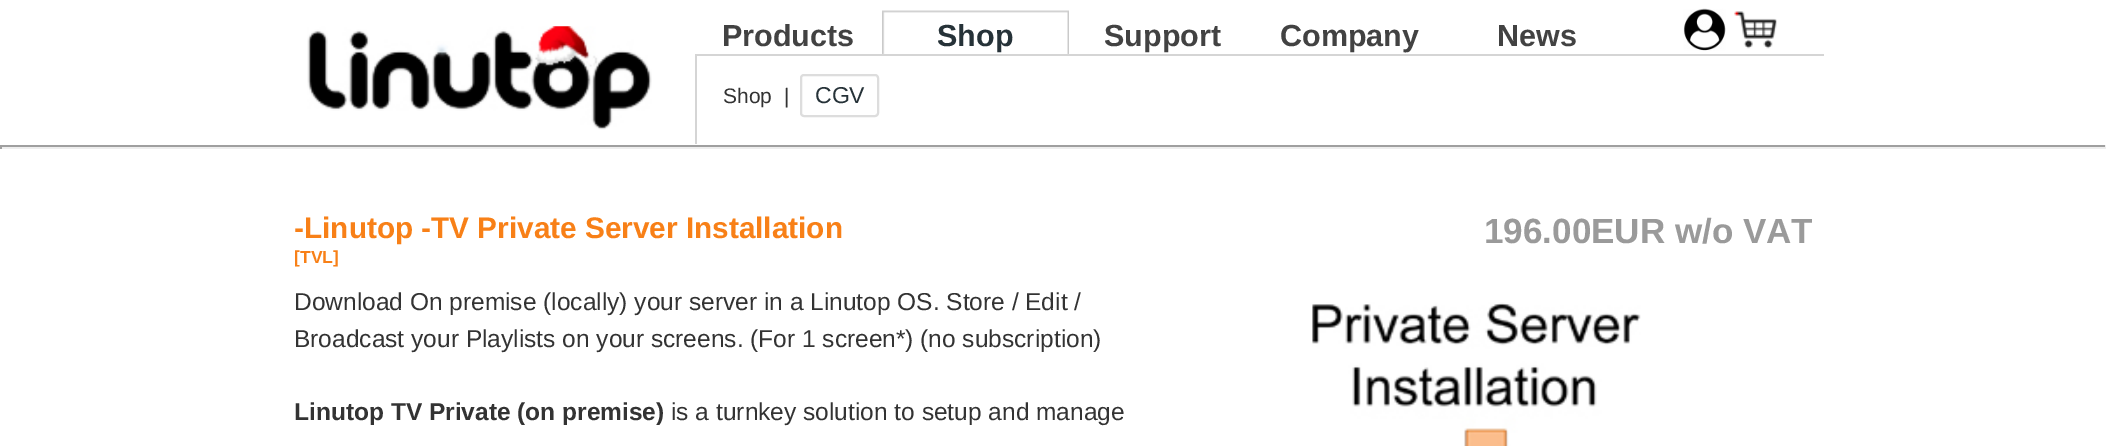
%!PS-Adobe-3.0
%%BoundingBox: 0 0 2106 446
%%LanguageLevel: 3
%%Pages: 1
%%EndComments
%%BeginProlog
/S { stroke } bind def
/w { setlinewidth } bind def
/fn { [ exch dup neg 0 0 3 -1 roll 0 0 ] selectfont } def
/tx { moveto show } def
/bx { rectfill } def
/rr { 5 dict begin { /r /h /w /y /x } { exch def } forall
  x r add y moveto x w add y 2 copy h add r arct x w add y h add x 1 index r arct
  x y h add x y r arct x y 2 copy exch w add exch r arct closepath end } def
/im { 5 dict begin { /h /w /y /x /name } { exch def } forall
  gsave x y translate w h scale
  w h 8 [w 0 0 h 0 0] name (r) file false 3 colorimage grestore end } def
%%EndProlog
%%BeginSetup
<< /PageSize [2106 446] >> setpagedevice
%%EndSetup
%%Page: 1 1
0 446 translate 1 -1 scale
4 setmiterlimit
1 setgray
0 0 2106 446 bx
(image0.raw) 307 26 345 104 im
/LiberationSans-Bold 30.5 fn
0.259 setgray
(Products) 722 46 tx
(image1.raw) 882 10 187 44 im
0.149 0.196 0.22 setrgbcolor
(Shop) 937 46 tx
0.259 setgray
(Support) 1104 46 tx
(Company) 1280 46 tx
(News) 1497 46 tx
0.835 setgray
695 54 1129 2 bx
695 54 2 90 bx
/LiberationSans-Regular 21 fn
0.2 setgray
(Shop  |) 723 103 tx
0.867 setgray
2 w
801 75 77 41 3 rr S
/LiberationSans-Regular 23 fn
0.149 0.196 0.22 setrgbcolor
(CGV) 815 103 tx
(image2.raw) 1683 8 43 43 im
(image3.raw) 1734 11 43 38 im
0.624 setgray
0 145 2106 2 bx
0.933 setgray
2105 145 1 4 bx
0 147 2106 2 bx
0.624 setgray
0 145 2 4 bx
/LiberationSans-Bold 29.75 fn
0.973 0.502 0.09 setrgbcolor
(-Linutop -TV Private Server Installation) 294 238 tx
/LiberationSans-Bold 17.5 fn
([TVL]) 294 263 tx
/LiberationSans-Bold 35 fn
0.604 setgray
(196.00EUR w/o VAT) 1484 243 tx
/LiberationSans-Regular 24.5 fn
0.2 setgray
(Download On premise \(locally\) your server in a Linutop OS. Store / Edit /) 294 310 tx
(Broadcast your Playlists on your screens. \(For 1 screen*\) \(no subscription\)) 294 347 tx
/LiberationSans-Bold 24.5 fn
(Linutop TV Private \(on premise\)) 294 420 tx
/LiberationSans-Regular 24.5 fn
(is a turnkey solution to setup and manage) 671 420 tx
(image4.raw) 1312 302 329 144 im
showpage
%%EOF
